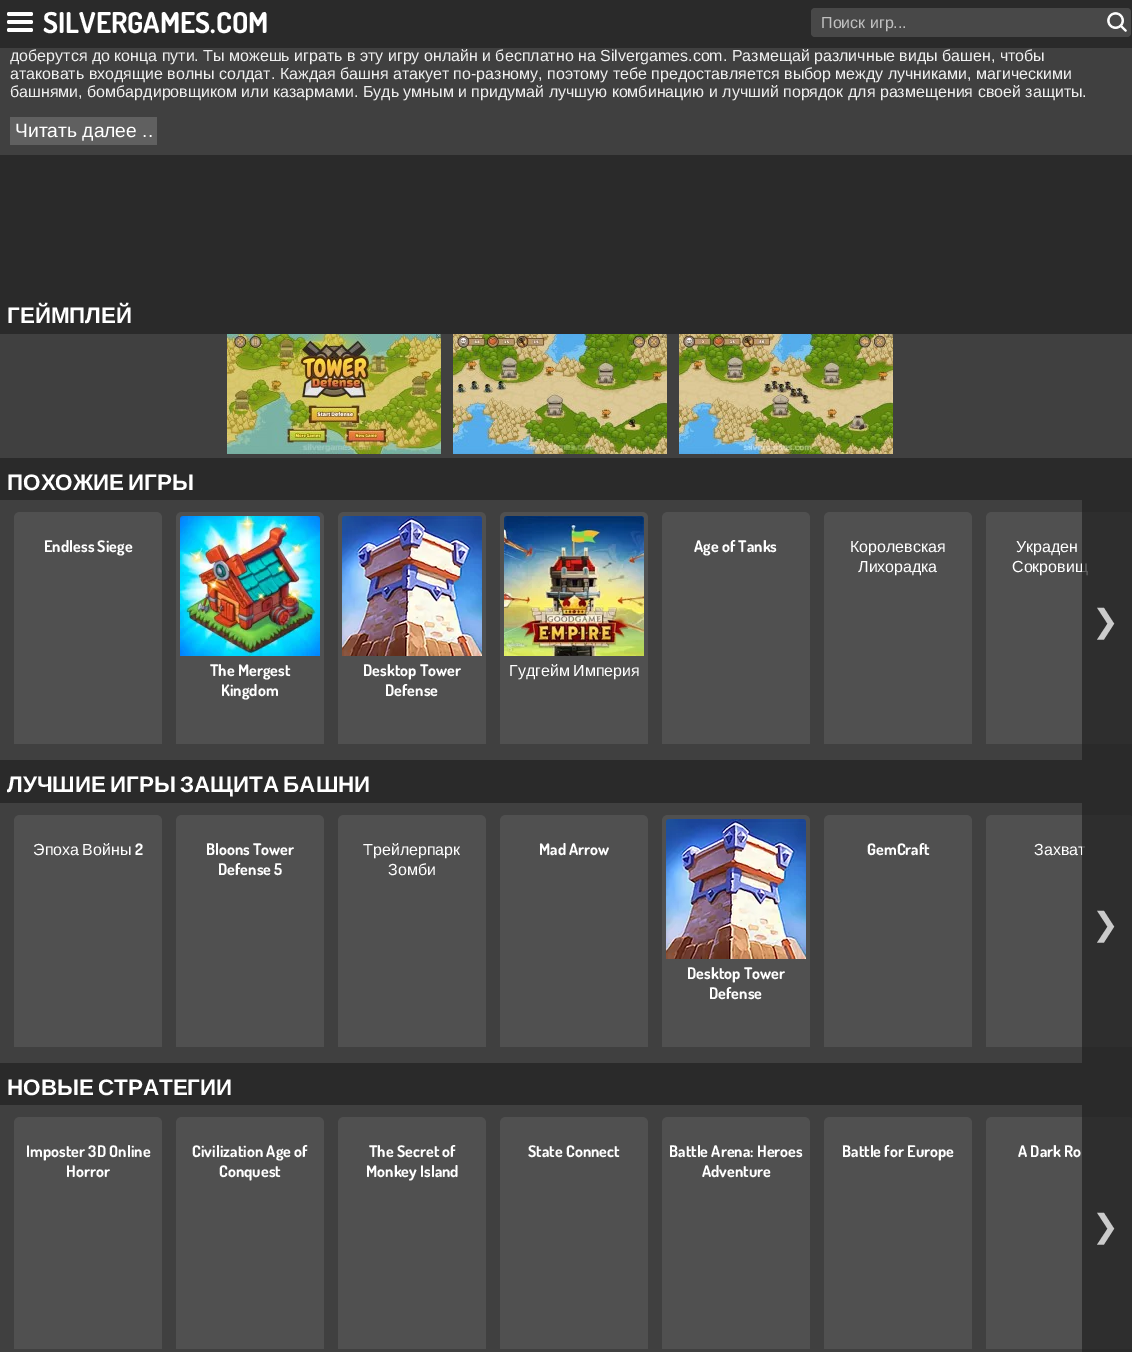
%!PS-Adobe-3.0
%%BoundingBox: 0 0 1132 1352
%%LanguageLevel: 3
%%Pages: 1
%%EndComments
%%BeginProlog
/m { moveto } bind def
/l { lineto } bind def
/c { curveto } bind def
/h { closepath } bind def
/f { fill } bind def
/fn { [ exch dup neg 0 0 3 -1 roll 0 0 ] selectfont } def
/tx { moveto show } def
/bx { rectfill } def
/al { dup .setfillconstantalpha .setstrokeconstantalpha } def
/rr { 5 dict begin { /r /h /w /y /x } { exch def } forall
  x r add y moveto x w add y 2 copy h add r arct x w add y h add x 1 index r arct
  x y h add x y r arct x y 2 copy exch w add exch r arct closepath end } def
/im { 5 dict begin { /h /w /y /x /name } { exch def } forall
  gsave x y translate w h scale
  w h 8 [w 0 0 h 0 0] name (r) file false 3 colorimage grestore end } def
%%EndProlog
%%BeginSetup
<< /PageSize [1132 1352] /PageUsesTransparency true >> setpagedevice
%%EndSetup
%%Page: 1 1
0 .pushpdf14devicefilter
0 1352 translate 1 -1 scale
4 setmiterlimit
0.165 setgray
0 0 1132 1352 bx
1 setgray
7 12 26 4 2 rr f
7 20 26 4 2 rr f
7 28 26 4 2 rr f
/Dosis-Bold 28.75 fn
(SILVERGAMES.COM) 43 33 tx
0.282 setgray
811 8 320 29 4 rr f
/LiberationSans-Regular 16 fn
0.753 setgray
(Поиск игр...) 821 28 tx
(image0.raw) 1107 12 20 20 im
0.251 setgray
0 48 1132 107 bx
0.941 setgray
(доберутся до конца пути. Ты можешь играть в эту игру онлайн и бесплатно на Silvergames.com. Размещай различные виды башен, чтобы) 10 61 tx
(атаковать входящие волны солдат. Каждая башня атакует по-разному, поэтому тебе предоставляется выбор между лучниками, магическими) 10 79 tx
(башнями, бомбардировщиком или казармами. Будь умным и придумай лучшую комбинацию и лучший порядок для размещения своей защиты.) 10 97 tx
0.376 setgray
10 117 147 28 bx
/LiberationSans-Regular 19.25 fn
1 setgray
(Читать далее ..) 15 137 tx
/LiberationSans-Bold 22.4 fn
(ГЕЙМПЛЕЙ) 7 323 tx
0.251 setgray
0 334 1132 124 bx
(image1.raw) 227 334 214 120 im
(image2.raw) 453 334 214 120 im
(image3.raw) 679 334 214 120 im
1 setgray
7 490 m -2 0 32 (ПОХОЖИЕ ИГРЫ) widthshow
0.251 setgray
0 500 1132 260 bx
0.314 setgray
20 512 m 156 512 l 159.5 512 162 514.5 162 518 c 162 744 l 14 744 l 14 518 l 14 514.5 16.5 512 20 512 c h f
/Dosis-Bold 16 fn
1 setgray
(Endless Siege) 44 552 tx
0.314 setgray
668 512 m 804 512 l 807.5 512 810 514.5 810 518 c 810 744 l 662 744 l 662 518 l 662 514.5 664.5 512 668 512 c h f
1 setgray
(Age of Tanks) 694 552 tx
0.314 setgray
830 512 m 966 512 l 969.5 512 972 514.5 972 518 c 972 744 l 824 744 l 824 518 l 824 514.5 826.5 512 830 512 c h f
/LiberationSans-Regular 16 fn
1 setgray
(Королевская) 850 552 tx
(Лихорадка) 858 572 tx
0.314 setgray
992 512 m 1128 512 l 1131.5 512 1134 514.5 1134 518 c 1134 744 l 986 744 l 986 518 l 986 514.5 988.5 512 992 512 c h f
1 setgray
(Украден) 1016 552 tx
(Сокровищ) 1012 572 tx
0.314 setgray
182 512 m 318 512 l 321.5 512 324 514.5 324 518 c 324 744 l 176 744 l 176 518 l 176 514.5 178.5 512 182 512 c h f
(image4.raw) 180 516 140 140 im
/Dosis-Bold 16 fn
1 setgray
(The Mergest) 210 676 tx
(Kingdom) 221 696 tx
0.314 setgray
344 512 m 480 512 l 483.5 512 486 514.5 486 518 c 486 744 l 338 744 l 338 518 l 338 514.5 340.5 512 344 512 c h f
(image5.raw) 342 516 140 140 im
1 setgray
(Desktop Tower) 363 676 tx
(Defense) 385 696 tx
0.314 setgray
506 512 m 642 512 l 645.5 512 648 514.5 648 518 c 648 744 l 500 744 l 500 518 l 500 514.5 502.5 512 506 512 c h f
(image6.raw) 504 516 140 140 im
/LiberationSans-Regular 16 fn
1 setgray
509 676 m -1 0 32 (Гудгейм Империя) widthshow
0.7 al
0.125 setgray
1082 500 50 260 bx
/DejaVuSans-Regular 32 fn
1 al
0.796 setgray
(❯) 1092 632 tx
/LiberationSans-Bold 22.4 fn
1 setgray
7 792 m -2 0 32 (ЛУЧШИЕ ИГРЫ ЗАЩИТА БАШНИ) widthshow
0.251 setgray
0 803 1132 260 bx
0.314 setgray
20 815 m 156 815 l 159.5 815 162 817.5 162 821 c 162 1047 l 14 1047 l 14 821 l 14 817.5 16.5 815 20 815 c h f
/LiberationSans-Regular 16 fn
1 setgray
33 855 m -1 0 32 (Эпоха Войны) widthshow
/Dosis-Bold 16 fn
(2) 135 855 tx
0.314 setgray
182 815 m 318 815 l 321.5 815 324 817.5 324 821 c 324 1047 l 176 1047 l 176 821 l 176 817.5 178.5 815 182 815 c h f
1 setgray
(Bloons Tower) 206 855 tx
(Defense 5) 218 875 tx
0.314 setgray
344 815 m 480 815 l 483.5 815 486 817.5 486 821 c 486 1047 l 338 1047 l 338 821 l 338 817.5 340.5 815 344 815 c h f
/LiberationSans-Regular 16 fn
1 setgray
(Трейлерпарк) 363 855 tx
(Зомби) 388 875 tx
0.314 setgray
506 815 m 642 815 l 645.5 815 648 817.5 648 821 c 648 1047 l 500 1047 l 500 821 l 500 817.5 502.5 815 506 815 c h f
/Dosis-Bold 16 fn
1 setgray
(Mad Arrow) 539 855 tx
0.314 setgray
830 815 m 966 815 l 969.5 815 972 817.5 972 821 c 972 1047 l 824 1047 l 824 821 l 824 817.5 826.5 815 830 815 c h f
1 setgray
(GemCraft) 867 855 tx
0.314 setgray
992 815 m 1128 815 l 1131.5 815 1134 817.5 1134 821 c 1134 1047 l 986 1047 l 986 821 l 986 817.5 988.5 815 992 815 c h f
/LiberationSans-Regular 16 fn
1 setgray
(Захват) 1034 855 tx
0.314 setgray
668 815 m 804 815 l 807.5 815 810 817.5 810 821 c 810 1047 l 662 1047 l 662 821 l 662 817.5 664.5 815 668 815 c h f
(image5.raw) 666 819 140 140 im
/Dosis-Bold 16 fn
1 setgray
(Desktop Tower) 687 979 tx
(Defense) 709 999 tx
0.7 al
0.125 setgray
1082 803 50 260 bx
/DejaVuSans-Regular 32 fn
1 al
0.796 setgray
(❯) 1092 935 tx
/LiberationSans-Bold 22.4 fn
1 setgray
7 1095 m -2 0 32 (НОВЫЕ СТРАТЕГИИ) widthshow
0.251 setgray
0 1105 1132 247 bx
0.314 setgray
20 1117 m 156 1117 l 159.5 1117 162 1119.5 162 1123 c 162 1349 l 14 1349 l 14 1123 l 14 1119.5 16.5 1117 20 1117 c h f
/Dosis-Bold 16 fn
1 setgray
(Imposter 3D Online) 26 1157 tx
(Horror) 66 1177 tx
0.314 setgray
182 1117 m 318 1117 l 321.5 1117 324 1119.5 324 1123 c 324 1349 l 176 1349 l 176 1123 l 176 1119.5 178.5 1117 182 1117 c h f
1 setgray
(Civilization Age of) 192 1157 tx
(Conquest) 219 1177 tx
0.314 setgray
344 1117 m 480 1117 l 483.5 1117 486 1119.5 486 1123 c 486 1349 l 338 1349 l 338 1123 l 338 1119.5 340.5 1117 344 1117 c h f
1 setgray
(The Secret of) 369 1157 tx
(Monkey Island) 366 1177 tx
0.314 setgray
506 1117 m 642 1117 l 645.5 1117 648 1119.5 648 1123 c 648 1349 l 500 1349 l 500 1123 l 500 1119.5 502.5 1117 506 1117 c h f
1 setgray
(State Connect) 528 1157 tx
0.314 setgray
668 1117 m 804 1117 l 807.5 1117 810 1119.5 810 1123 c 810 1349 l 662 1349 l 662 1123 l 662 1119.5 664.5 1117 668 1117 c h f
1 setgray
(Battle Arena: Heroes) 669 1157 tx
(Adventure) 702 1177 tx
0.314 setgray
830 1117 m 966 1117 l 969.5 1117 972 1119.5 972 1123 c 972 1349 l 824 1349 l 824 1123 l 824 1119.5 826.5 1117 830 1117 c h f
1 setgray
(Battle for Europe) 842 1157 tx
0.314 setgray
992 1117 m 1128 1117 l 1131.5 1117 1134 1119.5 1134 1123 c 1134 1349 l 986 1349 l 986 1123 l 986 1119.5 988.5 1117 992 1117 c h f
1 setgray
(A Dark Ro) 1018 1157 tx
0.7 al
0.125 setgray
1082 1105 50 247 bx
/DejaVuSans-Regular 32 fn
1 al
0.796 setgray
(❯) 1092 1237 tx
.poppdf14devicefilter showpage
%%EOF
